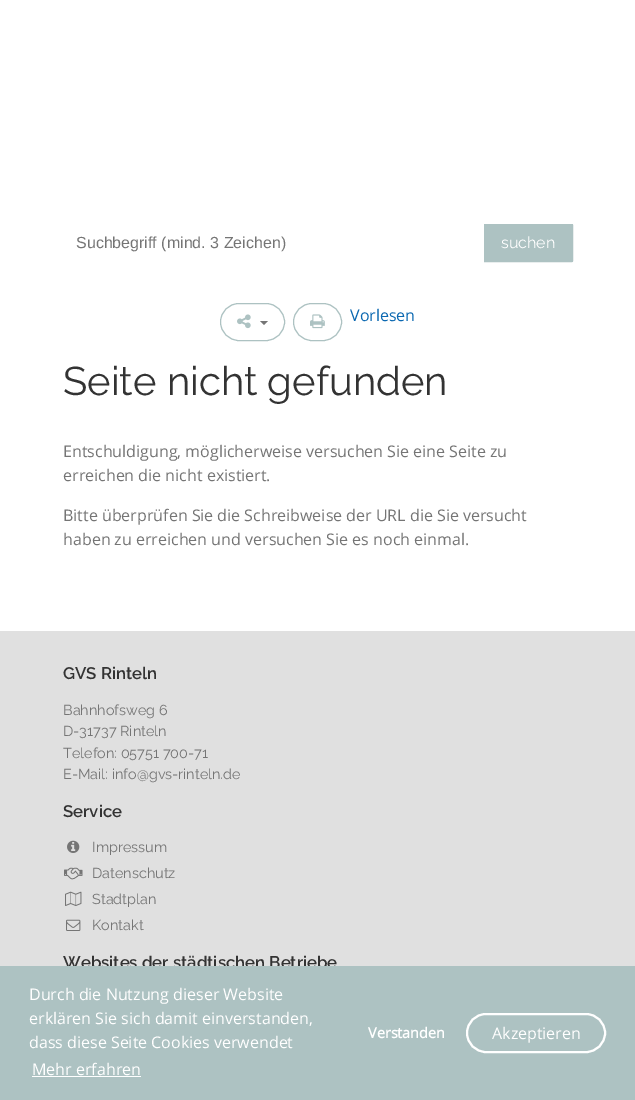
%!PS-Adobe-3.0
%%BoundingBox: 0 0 635 1100
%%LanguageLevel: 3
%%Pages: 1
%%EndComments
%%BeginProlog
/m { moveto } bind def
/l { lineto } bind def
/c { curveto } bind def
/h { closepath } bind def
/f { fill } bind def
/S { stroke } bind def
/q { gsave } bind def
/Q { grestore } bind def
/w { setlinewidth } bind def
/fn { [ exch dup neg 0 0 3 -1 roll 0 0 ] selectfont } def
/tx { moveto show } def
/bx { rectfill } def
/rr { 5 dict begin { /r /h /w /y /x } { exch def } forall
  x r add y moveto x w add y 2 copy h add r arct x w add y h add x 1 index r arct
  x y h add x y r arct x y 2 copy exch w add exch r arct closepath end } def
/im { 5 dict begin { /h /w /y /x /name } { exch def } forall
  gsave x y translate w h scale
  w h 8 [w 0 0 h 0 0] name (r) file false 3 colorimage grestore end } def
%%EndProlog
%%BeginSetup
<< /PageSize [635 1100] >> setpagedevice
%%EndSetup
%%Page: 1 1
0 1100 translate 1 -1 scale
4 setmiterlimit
1 setgray
0 0 635 1100 bx
/LiberationSans-Regular 16 fn
0.459 setgray
(Suchbegriff \(mind. 3 Zeichen\)) 76 248 tx
0.678 0.761 0.761 setrgbcolor
484.5 224.5 m 572 224.5 l 572.5 224.5 572.5 224.5 572.5 225 c 572.5 261 l 572.5 261.5 572.5 261.5 572 261.5 c 484.5 261.5 l h q f Q
S
/Raleway-Thin 16 fn
1 setgray
(suchen) 501 248 tx
0.678 0.761 0.761 setrgbcolor
220.5 303.5 64 37 18.5 rr S
(image0.raw) 237 314 14 15 im
0.459 setgray
260 321 m 268 321 l 264 325 l h f
0.678 0.761 0.761 setrgbcolor
293.5 303.5 48 37 18.5 rr S
(image1.raw) 310 314 15 15 im
/OpenSans-Regular 16 fn
0.043 0.408 0.694 setrgbcolor
(Vorlesen) 350 321 tx
/Raleway-Thin 40 fn
0.2 setgray
(Seite nicht gefunden) 63 395 tx
/OpenSans-Regular 16 fn
0.459 setgray
(Entschuldigung, möglicherweise versuchen Sie eine Seite zu) 63 457 tx
(erreichen die nicht existiert.) 63 481 tx
(Bitte überprüfen Sie die Schreibweise der URL die Sie versucht) 63 521 tx
(haben zu erreichen und versuchen Sie es noch einmal.) 63 545 tx
0.878 setgray
0 631 635 335 bx
/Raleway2-Thin 16.75 fn
0.2 setgray
(GVS Rinteln) 63 679 tx
/Raleway-Thin 14.4 fn
0.459 setgray
(Bahnhofsweg 6) 63 715 tx
(D-31737 Rinteln) 63 736 tx
(Telefon: 05751 700-71) 63 758 tx
(E-Mail: info@gvs-rinteln.de) 63 779 tx
/Raleway2-Thin 16.75 fn
0.2 setgray
(Service) 63 817 tx
(image2.raw) 67 840 13 13 im
/Raleway-Thin 14.4 fn
0.459 setgray
(Impressum) 92 852 tx
(image3.raw) 64 867 19 13 im
(Datenschutz) 92 878 tx
(image4.raw) 65 891 17 15 im
(Stadtplan) 92 904 tx
(image5.raw) 66 919 15 12 im
(Kontakt) 92 930 tx
/Raleway2-Thin 16.75 fn
0.2 setgray
(Websites der städtischen Betriebe) 63 968 tx
0.678 0.761 0.761 setrgbcolor
0 966 635 134 bx
/OpenSans-Regular 16 fn
1 setgray
(Durch die Nutzung dieser Website) 29 1000 tx
(erklären Sie sich damit einverstanden,) 29 1024 tx
(dass diese Seite Cookies verwendet) 29 1048 tx
(Mehr erfahren) 32 1075 tx
32 1076 109 1 bx
/OpenSans-Bold 14.4 fn
(Verstanden) 368 1038 tx
2 w
467 1014 138 38 19 rr S
/OpenSans-Regular 16 fn
(Akzeptieren) 492 1039 tx
showpage
%%EOF
